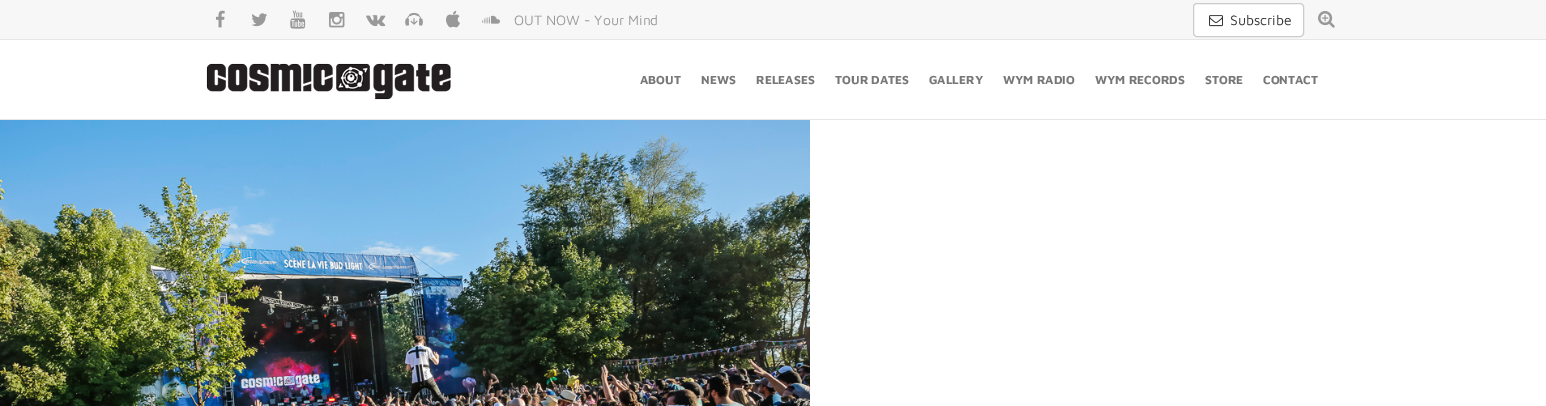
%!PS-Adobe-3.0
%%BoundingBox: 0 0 1546 406
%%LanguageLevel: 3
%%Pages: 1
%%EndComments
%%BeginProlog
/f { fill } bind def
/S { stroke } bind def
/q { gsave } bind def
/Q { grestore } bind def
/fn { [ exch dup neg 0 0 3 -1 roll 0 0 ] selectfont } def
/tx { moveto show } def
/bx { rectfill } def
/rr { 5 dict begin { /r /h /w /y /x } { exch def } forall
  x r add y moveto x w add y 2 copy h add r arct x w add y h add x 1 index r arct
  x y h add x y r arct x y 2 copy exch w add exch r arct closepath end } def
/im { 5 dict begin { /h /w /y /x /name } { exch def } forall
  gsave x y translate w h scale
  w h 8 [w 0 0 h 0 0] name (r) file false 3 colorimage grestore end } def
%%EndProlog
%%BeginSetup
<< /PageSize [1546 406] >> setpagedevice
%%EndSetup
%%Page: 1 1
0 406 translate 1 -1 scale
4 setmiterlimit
1 setgray
0 0 1546 406 bx
0.902 setgray
0 119 1546 1 bx
0.969 setgray
0 0 1546 39 bx
0.902 setgray
0 39 1546 1 bx
(image0.raw) 215 10 10 18 im
(image1.raw) 251 13 16 14 im
(image2.raw) 290 10 16 19 im
(image3.raw) 329 12 16 16 im
(image4.raw) 366 15 20 12 im
(image5.raw) 405 12 18 14 im
(image6.raw) 446 10 14 18 im
(image7.raw) 482 15 18 9 im
/MavenPro-Regular 14 fn
0.6 setgray
(OUT NOW - Your Mind) 514 25 tx
1 setgray
1193.5 3.5 110 33 3.5 rr q f Q
0.8 setgray
S
(image8.raw) 1209 15 14 12 im
0.2 setgray
(Subscribe) 1230 25 tx
(image9.raw) 1318 11 17 17 im
(image10.raw) 206 63 245 37 im
/MavenPro-Bold 12 fn
0.467 setgray
(ABOUT) 640 84 tx
(NEWS) 701 84 tx
(RELEASES) 756 84 tx
(TOUR DATES) 835 84 tx
(GALLERY) 929 84 tx
(WYM RADIO) 1003 84 tx
(WYM RECORDS) 1095 84 tx
(STORE) 1205 84 tx
(CONTACT) 1263 84 tx
(image11.raw) 0 120 810 286 im
showpage
%%EOF
